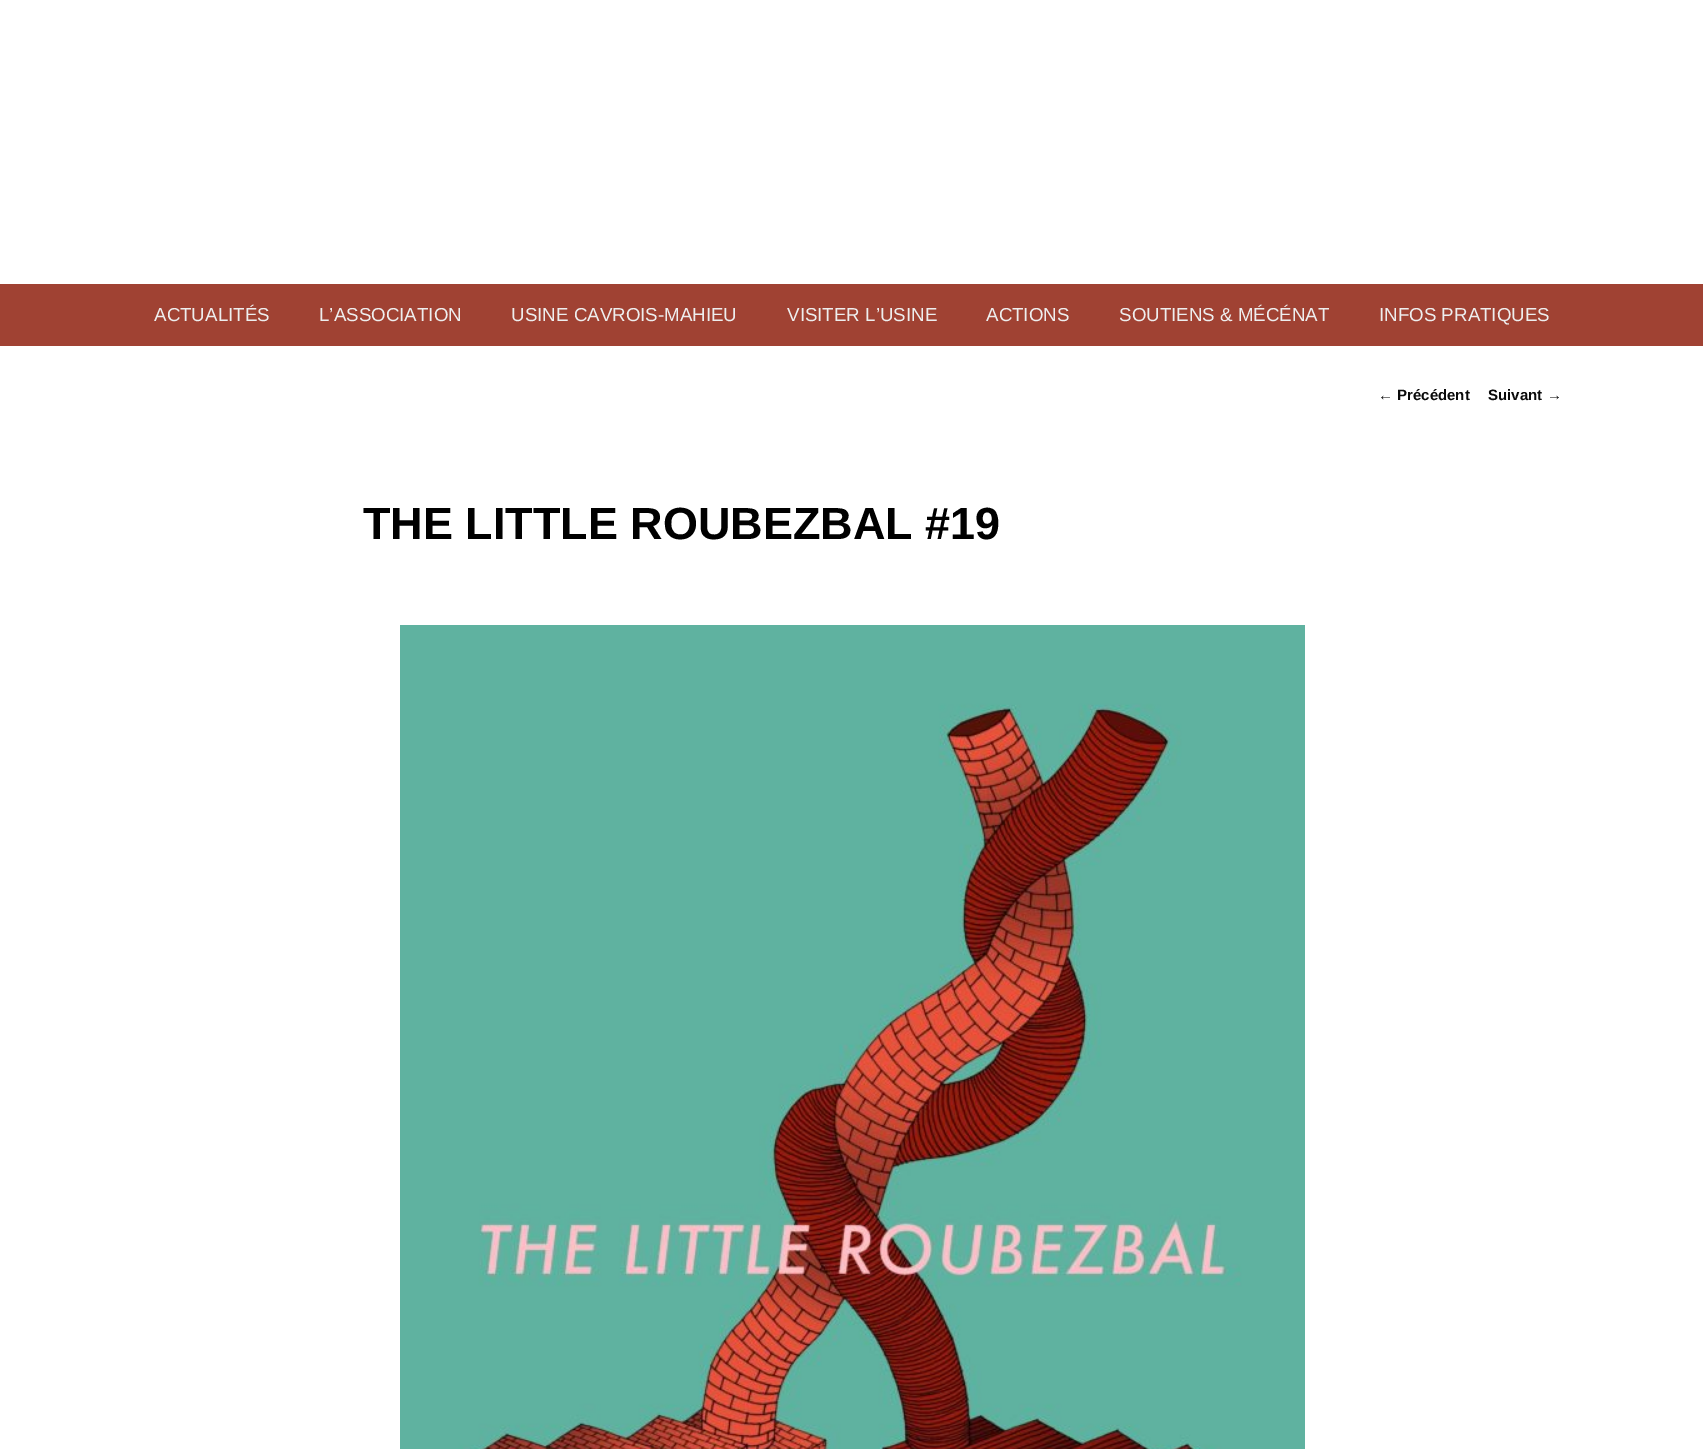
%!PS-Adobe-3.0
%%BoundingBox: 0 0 1703 1449
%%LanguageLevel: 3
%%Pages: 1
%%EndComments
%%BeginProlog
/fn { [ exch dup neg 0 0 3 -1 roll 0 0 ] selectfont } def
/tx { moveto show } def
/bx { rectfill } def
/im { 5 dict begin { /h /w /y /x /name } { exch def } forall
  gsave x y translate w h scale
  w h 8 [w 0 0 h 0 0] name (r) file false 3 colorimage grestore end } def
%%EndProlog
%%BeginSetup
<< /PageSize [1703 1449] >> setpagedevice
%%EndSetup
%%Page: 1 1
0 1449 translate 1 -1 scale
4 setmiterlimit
1 setgray
0 0 1703 1449 bx
0.627 0.259 0.2 setrgbcolor
0 284 1703 62 bx
/LiberationSans-Regular 18.75 fn
0.933 setgray
(ACTUALITÉS) 154 321 tx
(L’ASSOCIATION) 319 321 tx
(USINE CAVROIS-MAHIEU) 511 321 tx
(VISITER L’USINE) 787 321 tx
(ACTIONS) 986 321 tx
(SOUTIENS & MÉCÉNAT) 1119 321 tx
(INFOS PRATIQUES) 1379 321 tx
/LiberationSans-Regular 15 fn
0.039 setgray
(←) 1378 400 tx
/LiberationSans-Bold 15 fn
(Précédent) 1397 400 tx
(Suivant) 1488 400 tx
/LiberationSans-Regular 15 fn
(→) 1547 400 tx
/LiberationSans-Bold 45 fn
0 setgray
(THE LITTLE ROUBEZBAL #19) 363 539 tx
(image0.raw) 400 625 905 824 im
showpage
%%EOF
